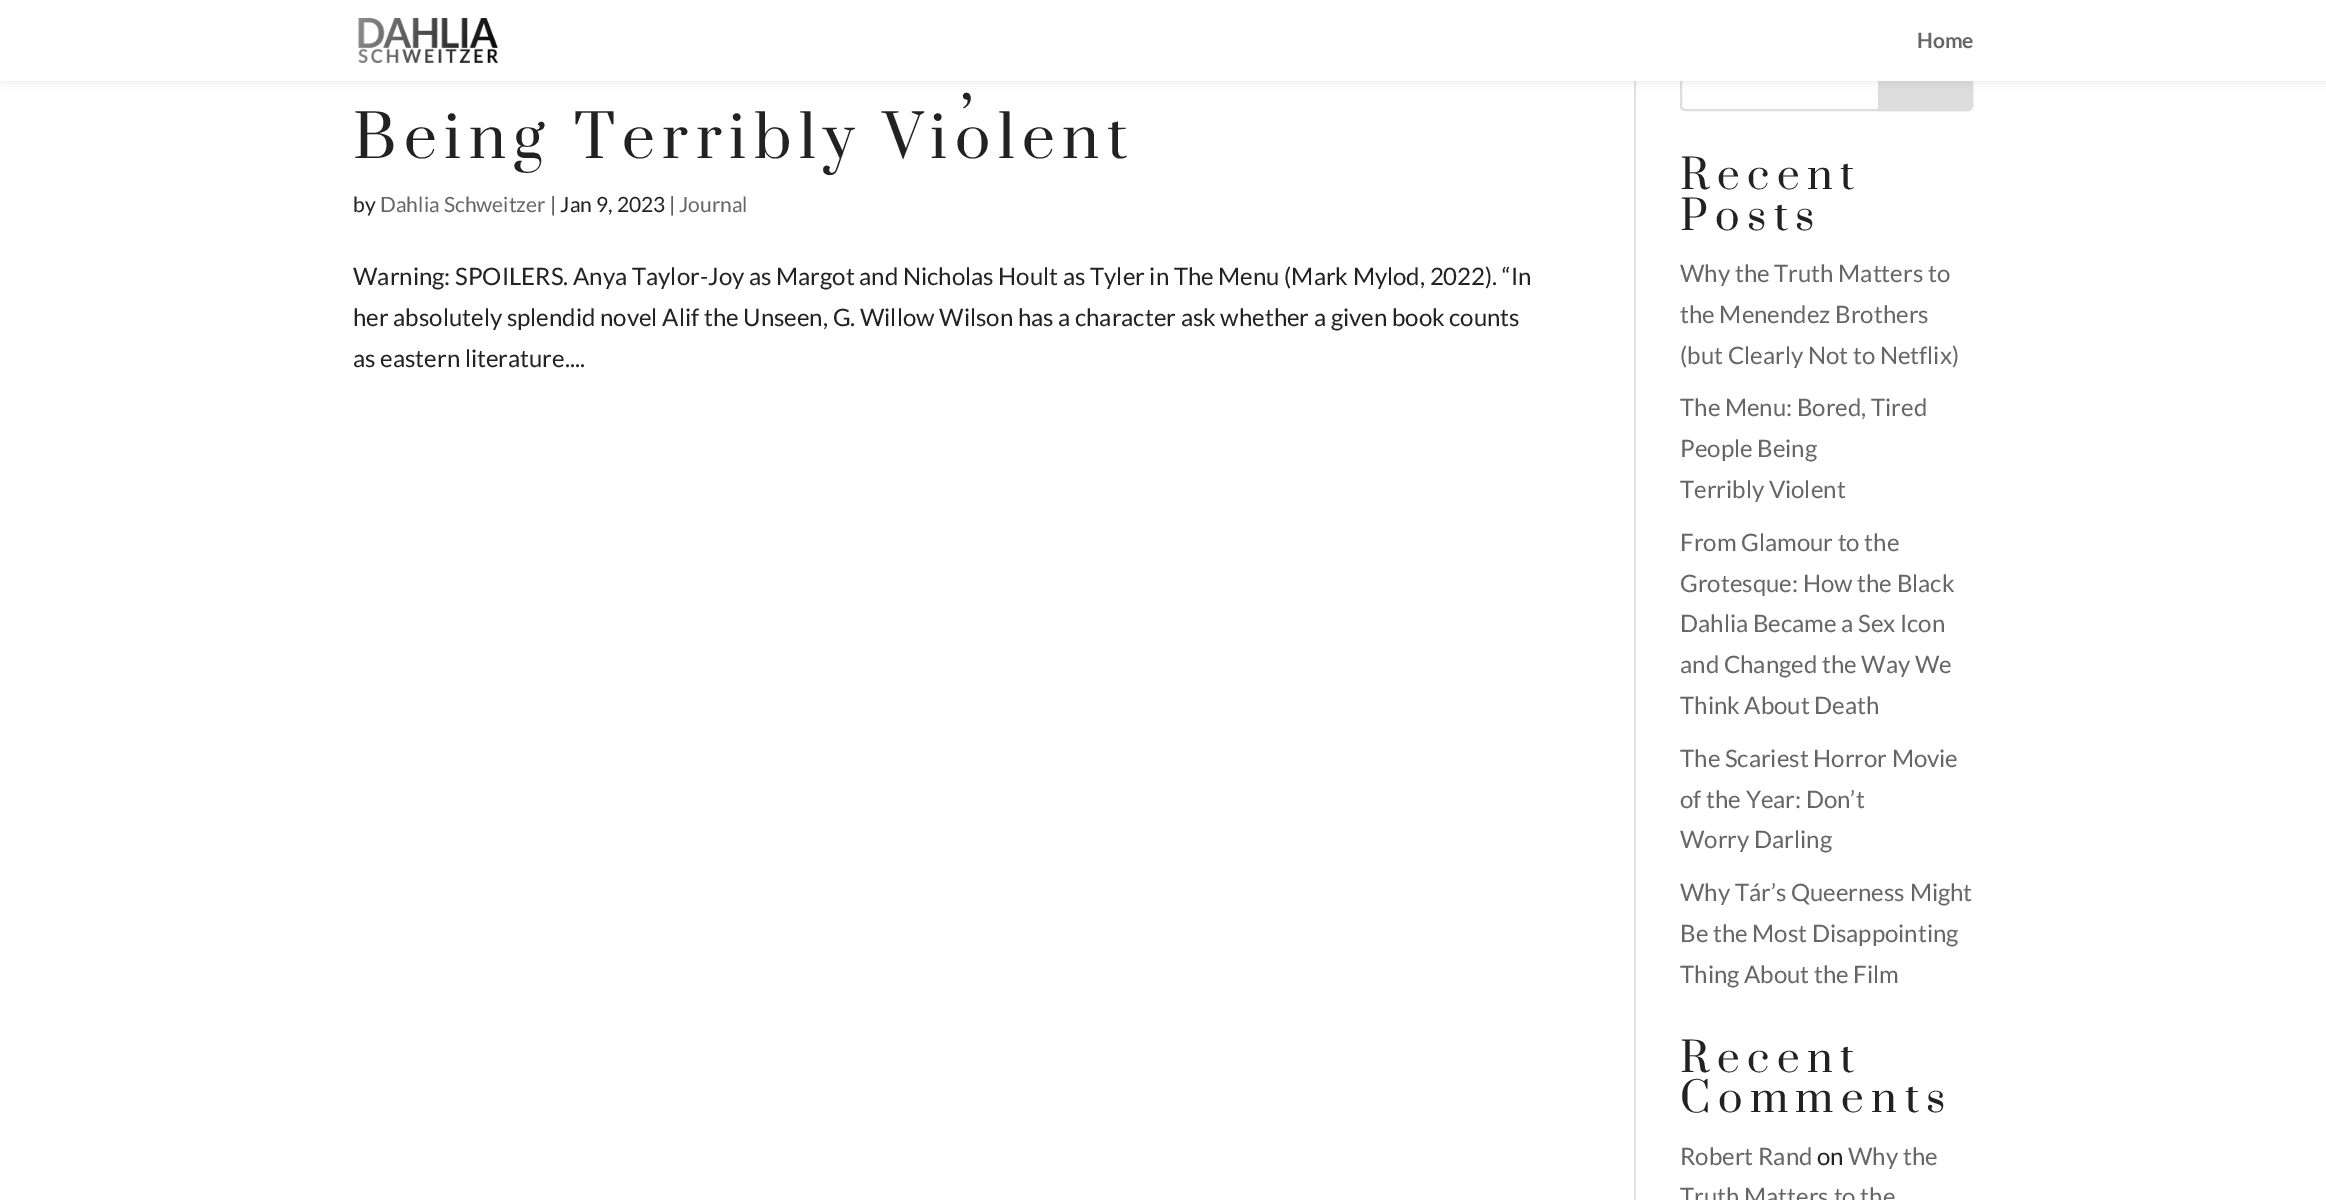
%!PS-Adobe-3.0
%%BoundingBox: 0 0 2326 1200
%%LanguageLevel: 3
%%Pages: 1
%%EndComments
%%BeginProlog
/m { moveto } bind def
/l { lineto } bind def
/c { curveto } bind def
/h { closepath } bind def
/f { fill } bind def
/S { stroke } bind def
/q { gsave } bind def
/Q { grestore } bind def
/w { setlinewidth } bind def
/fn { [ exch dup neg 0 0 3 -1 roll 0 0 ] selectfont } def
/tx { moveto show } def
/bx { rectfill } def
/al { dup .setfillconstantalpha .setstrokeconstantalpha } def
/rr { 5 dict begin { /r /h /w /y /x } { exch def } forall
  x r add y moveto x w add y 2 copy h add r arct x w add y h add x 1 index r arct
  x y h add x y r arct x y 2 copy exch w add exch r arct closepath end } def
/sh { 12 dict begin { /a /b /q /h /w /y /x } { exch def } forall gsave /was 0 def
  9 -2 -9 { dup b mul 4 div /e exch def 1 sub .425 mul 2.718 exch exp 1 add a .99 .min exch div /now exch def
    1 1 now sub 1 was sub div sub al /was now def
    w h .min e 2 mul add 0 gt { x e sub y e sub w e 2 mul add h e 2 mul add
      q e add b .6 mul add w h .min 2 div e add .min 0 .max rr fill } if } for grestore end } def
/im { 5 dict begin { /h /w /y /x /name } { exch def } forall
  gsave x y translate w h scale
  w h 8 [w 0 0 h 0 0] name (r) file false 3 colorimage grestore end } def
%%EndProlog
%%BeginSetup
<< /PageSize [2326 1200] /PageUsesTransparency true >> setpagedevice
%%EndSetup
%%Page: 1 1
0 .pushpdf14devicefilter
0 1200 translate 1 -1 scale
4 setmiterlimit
1 setgray
0 0 2326 1200 bx
0.886 setgray
1634 81 2 1119 bx
0.867 setgray
2 w
1681 52 291 58 4 rr S
1879 52 m 1968 52 l 1970 52 1972 54 1972 56 c 1972 106 l 1972 108 1970 110 1968 110 c 1879 110 l h q f Q
S
0 setgray
0 0 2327 81 0 5 0.1 sh
1 setgray
0 0 2326 81 bx
(image0.raw) 358 18 140 45 im
/Lato-Bold 21 fn
0.4 setgray
(Home) 1917 48 tx
/Prata-Regular 58.5 fn
0.133 setgray
960 99 m 7.5 0 (,) ashow
353 158 m 7.5 0 (Being Terribly Violent) ashow
/Lato-Regular 21 fn
(by) 353 212 tx
0.4 setgray
(Dahlia Schweitzer) 380 212 tx
0.133 setgray
(| Jan 9, 2023 |) 550 212 tx
0.4 setgray
(Journal) 679 212 tx
/Lato-Regular 24 fn
0.133 setgray
(Warning: SPOILERS. Anya Taylor-Joy as Margot and Nicholas Hoult as Tyler in The Menu \(Mark Mylod, 2022\). “In) 353 285 tx
(her absolutely splendid novel Alif the Unseen, G. Willow Wilson has a character ask whether a given book counts) 353 326 tx
(as eastern literature....) 353 367 tx
/Prata-Regular 40.5 fn
1680 189 m 7.5 0 (Recent) ashow
1680 230 m 7.5 0 (Posts) ashow
/Lato-Regular 24 fn
0.4 setgray
(Why the Truth Matters to) 1680 282 tx
(the Menendez Brothers) 1680 323 tx
(\(but Clearly Not to Netflix\)) 1680 364 tx
(The Menu: Bored, Tired) 1680 416 tx
(People Being) 1680 457 tx
(Terribly Violent) 1680 498 tx
(From Glamour to the) 1680 551 tx
(Grotesque: How the Black) 1680 592 tx
(Dahlia Became a Sex Icon) 1680 632 tx
(and Changed the Way We) 1680 673 tx
(Think About Death) 1680 714 tx
(The Scariest Horror Movie) 1680 767 tx
(of the Year: Don’t) 1680 808 tx
(Worry Darling) 1680 848 tx
(Why Tár’s Queerness Might) 1680 901 tx
(Be the Most Disappointing) 1680 942 tx
(Thing About the Film) 1680 983 tx
/Prata-Regular 40.5 fn
0.133 setgray
1680 1072 m 7.5 0 (Recent) ashow
1680 1112 m 7.5 0 (Comments) ashow
/Lato-Regular 24 fn
0.4 setgray
(Robert Rand) 1680 1165 tx
0.133 setgray
(on) 1817 1165 tx
0.4 setgray
(Why the) 1848 1165 tx
(Truth Matters to the) 1680 1205 tx
.poppdf14devicefilter showpage
%%EOF
